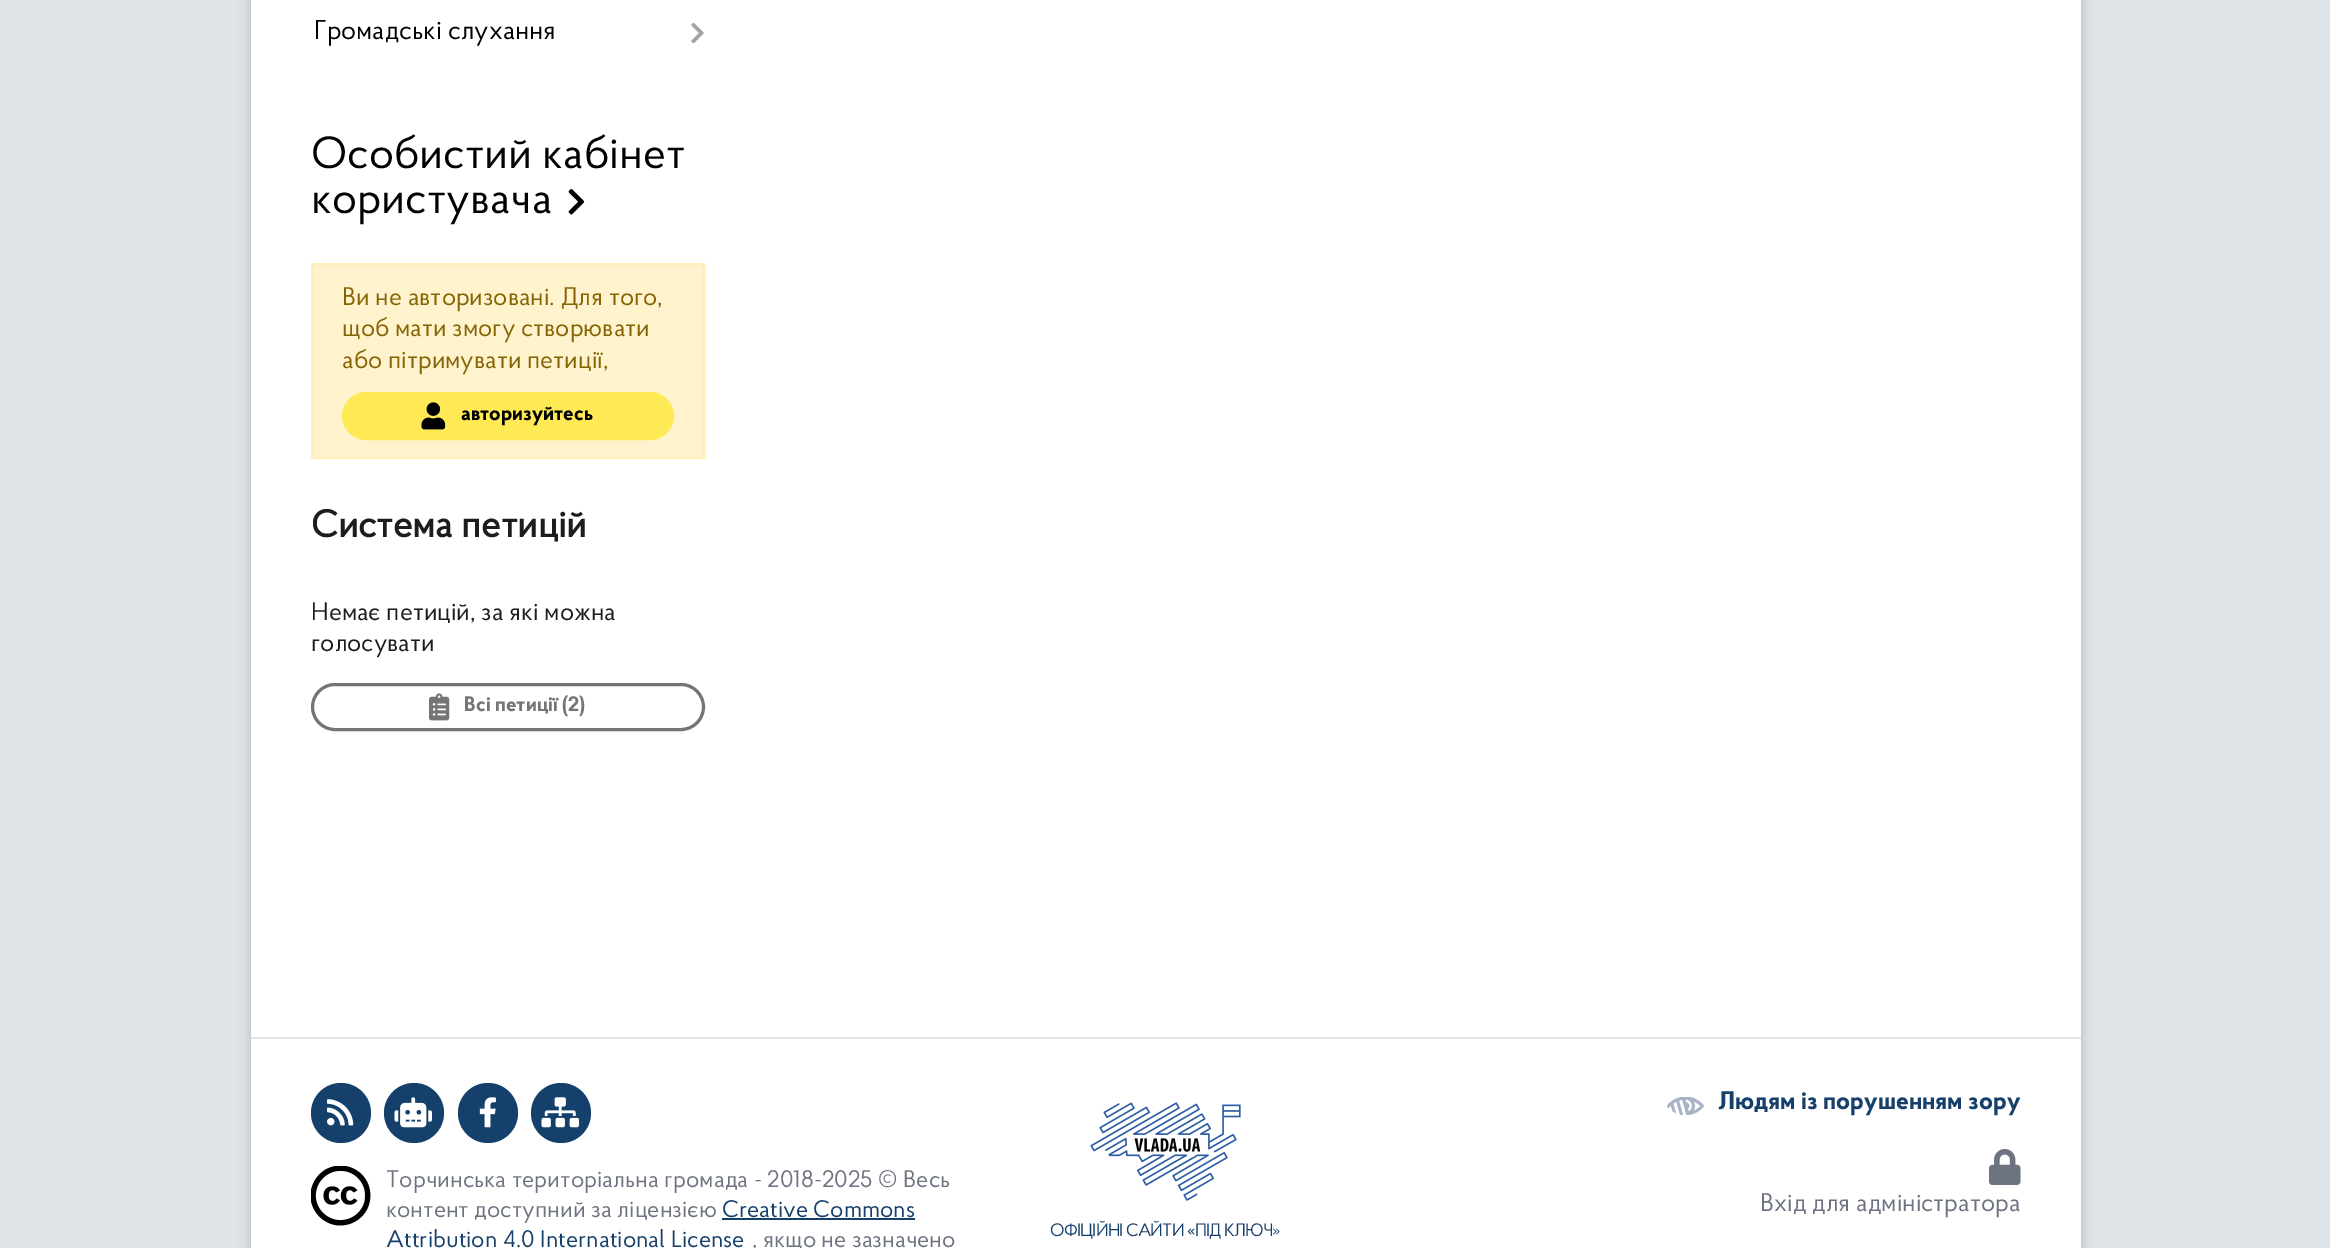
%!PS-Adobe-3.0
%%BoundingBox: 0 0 2330 1248
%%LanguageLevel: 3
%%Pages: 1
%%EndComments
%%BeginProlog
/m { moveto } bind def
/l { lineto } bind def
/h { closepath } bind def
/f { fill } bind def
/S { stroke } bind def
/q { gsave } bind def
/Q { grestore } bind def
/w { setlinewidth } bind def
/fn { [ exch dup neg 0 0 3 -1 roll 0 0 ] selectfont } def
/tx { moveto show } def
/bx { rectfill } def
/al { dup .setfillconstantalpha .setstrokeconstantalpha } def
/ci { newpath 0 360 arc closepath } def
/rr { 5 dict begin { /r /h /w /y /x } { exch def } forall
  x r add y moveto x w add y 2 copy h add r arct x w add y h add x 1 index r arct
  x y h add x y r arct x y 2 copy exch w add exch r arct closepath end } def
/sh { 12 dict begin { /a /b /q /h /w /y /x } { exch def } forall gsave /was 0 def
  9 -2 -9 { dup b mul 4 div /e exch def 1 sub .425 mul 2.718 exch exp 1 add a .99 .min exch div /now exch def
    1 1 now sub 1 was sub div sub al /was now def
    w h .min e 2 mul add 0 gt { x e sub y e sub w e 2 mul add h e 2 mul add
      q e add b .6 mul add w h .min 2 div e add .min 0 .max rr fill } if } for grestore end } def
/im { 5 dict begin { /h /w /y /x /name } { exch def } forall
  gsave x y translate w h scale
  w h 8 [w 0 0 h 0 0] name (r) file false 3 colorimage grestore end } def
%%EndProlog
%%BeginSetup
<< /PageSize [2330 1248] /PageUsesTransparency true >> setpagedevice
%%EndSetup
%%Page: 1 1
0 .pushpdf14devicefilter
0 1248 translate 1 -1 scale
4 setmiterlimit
0.871 0.894 0.906 setrgbcolor
0 0 2330 1248 bx
0 setgray
251 -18 1830 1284 0 6 0.2 sh
1 setgray
251 0 1830 1248 bx
/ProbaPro-Regular 27 fn
0 setgray
(Громадські слухання) 314 39 tx
(image0.raw) 691 22 13 22 im
/ProbaPro-Regular 45 fn
(Особистий кабінет) 311 168 tx
(користувача) 311 213 tx
(image1.raw) 568 189 17 26 im
1 0.953 0.804 setrgbcolor
312 264 m 704 264 l 704 458 l 312 458 l h q f Q
1 0.933 0.729 setrgbcolor
2 w
S
/ProbaPro-Regular 25.5 fn
0.522 0.392 0.016 setrgbcolor
(Ви не авторизовані. Для того,) 342 305 tx
(щоб мати змогу створювати) 342 336 tx
(або пітримувати петиції,) 342 368 tx
1 0.914 0.333 setrgbcolor
343.5 393.5 329 45 22.5 rr q f Q
3 w
S
(image2.raw) 421 402 25 28 im
/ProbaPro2-Bold 21 fn
0 setgray
(авторизуйтесь) 461 420 tx
/ProbaPro-Bold 38.25 fn
0.114 0.114 0.106 setrgbcolor
(Система петицій) 311 537 tx
/ProbaPro-Regular 25.5 fn
(Немає петицій, за які можна) 311 620 tx
(голосувати) 311 651 tx
0.459 setgray
312.5 684.5 391 45 22.5 rr S
(image3.raw) 429 693 21 28 im
/ProbaPro2-Bold 21 fn
(Всі петиції \(2\)) 464 711 tx
0.902 setgray
251 1037 1830 2 bx
0.086 0.251 0.424 setrgbcolor
341 1113 30 ci f
(image4.raw) 327 1099 27 27 im
414 1113 30 ci f
(image5.raw) 394 1097 38 31 im
488 1113 30 ci f
(image6.raw) 479 1097 17 31 im
561 1113 30 ci f
(image7.raw) 541 1097 38 31 im
(image8.raw) 311 1166 60 60 im
/ProbaPro-Regular 24 fn
0.427 0.451 0.506 setrgbcolor
(Торчинська територіальна громада - 2018-2025 © Весь) 386 1187 tx
(контент доступний за ліцензією) 386 1217 tx
0.086 0.251 0.424 setrgbcolor
(Creative Commons) 722 1217 tx
722 1218 193 2 bx
(Attribution 4.0 International License) 386 1247 tx
0.427 0.451 0.506 setrgbcolor
(, якщо не зазначено) 752 1247 tx
(image9.raw) 1090 1102 151 99 im
/ProbaPro-Regular 18 fn
0.086 0.251 0.424 setrgbcolor
1050 1236 m -0.75 0 (ОФІЦІЙНІ САЙТИ «ПІД КЛЮЧ») ashow
(image10.raw) 1667 1097 37 18 im
/ProbaPro2-Bold 25.5 fn
(Людям із порушенням зору) 1718 1109 tx
(image11.raw) 1989 1149 32 36 im
/ProbaPro-Regular 25.5 fn
0.427 0.451 0.506 setrgbcolor
(Вхід для адміністратора) 1760 1211 tx
.poppdf14devicefilter showpage
%%EOF
